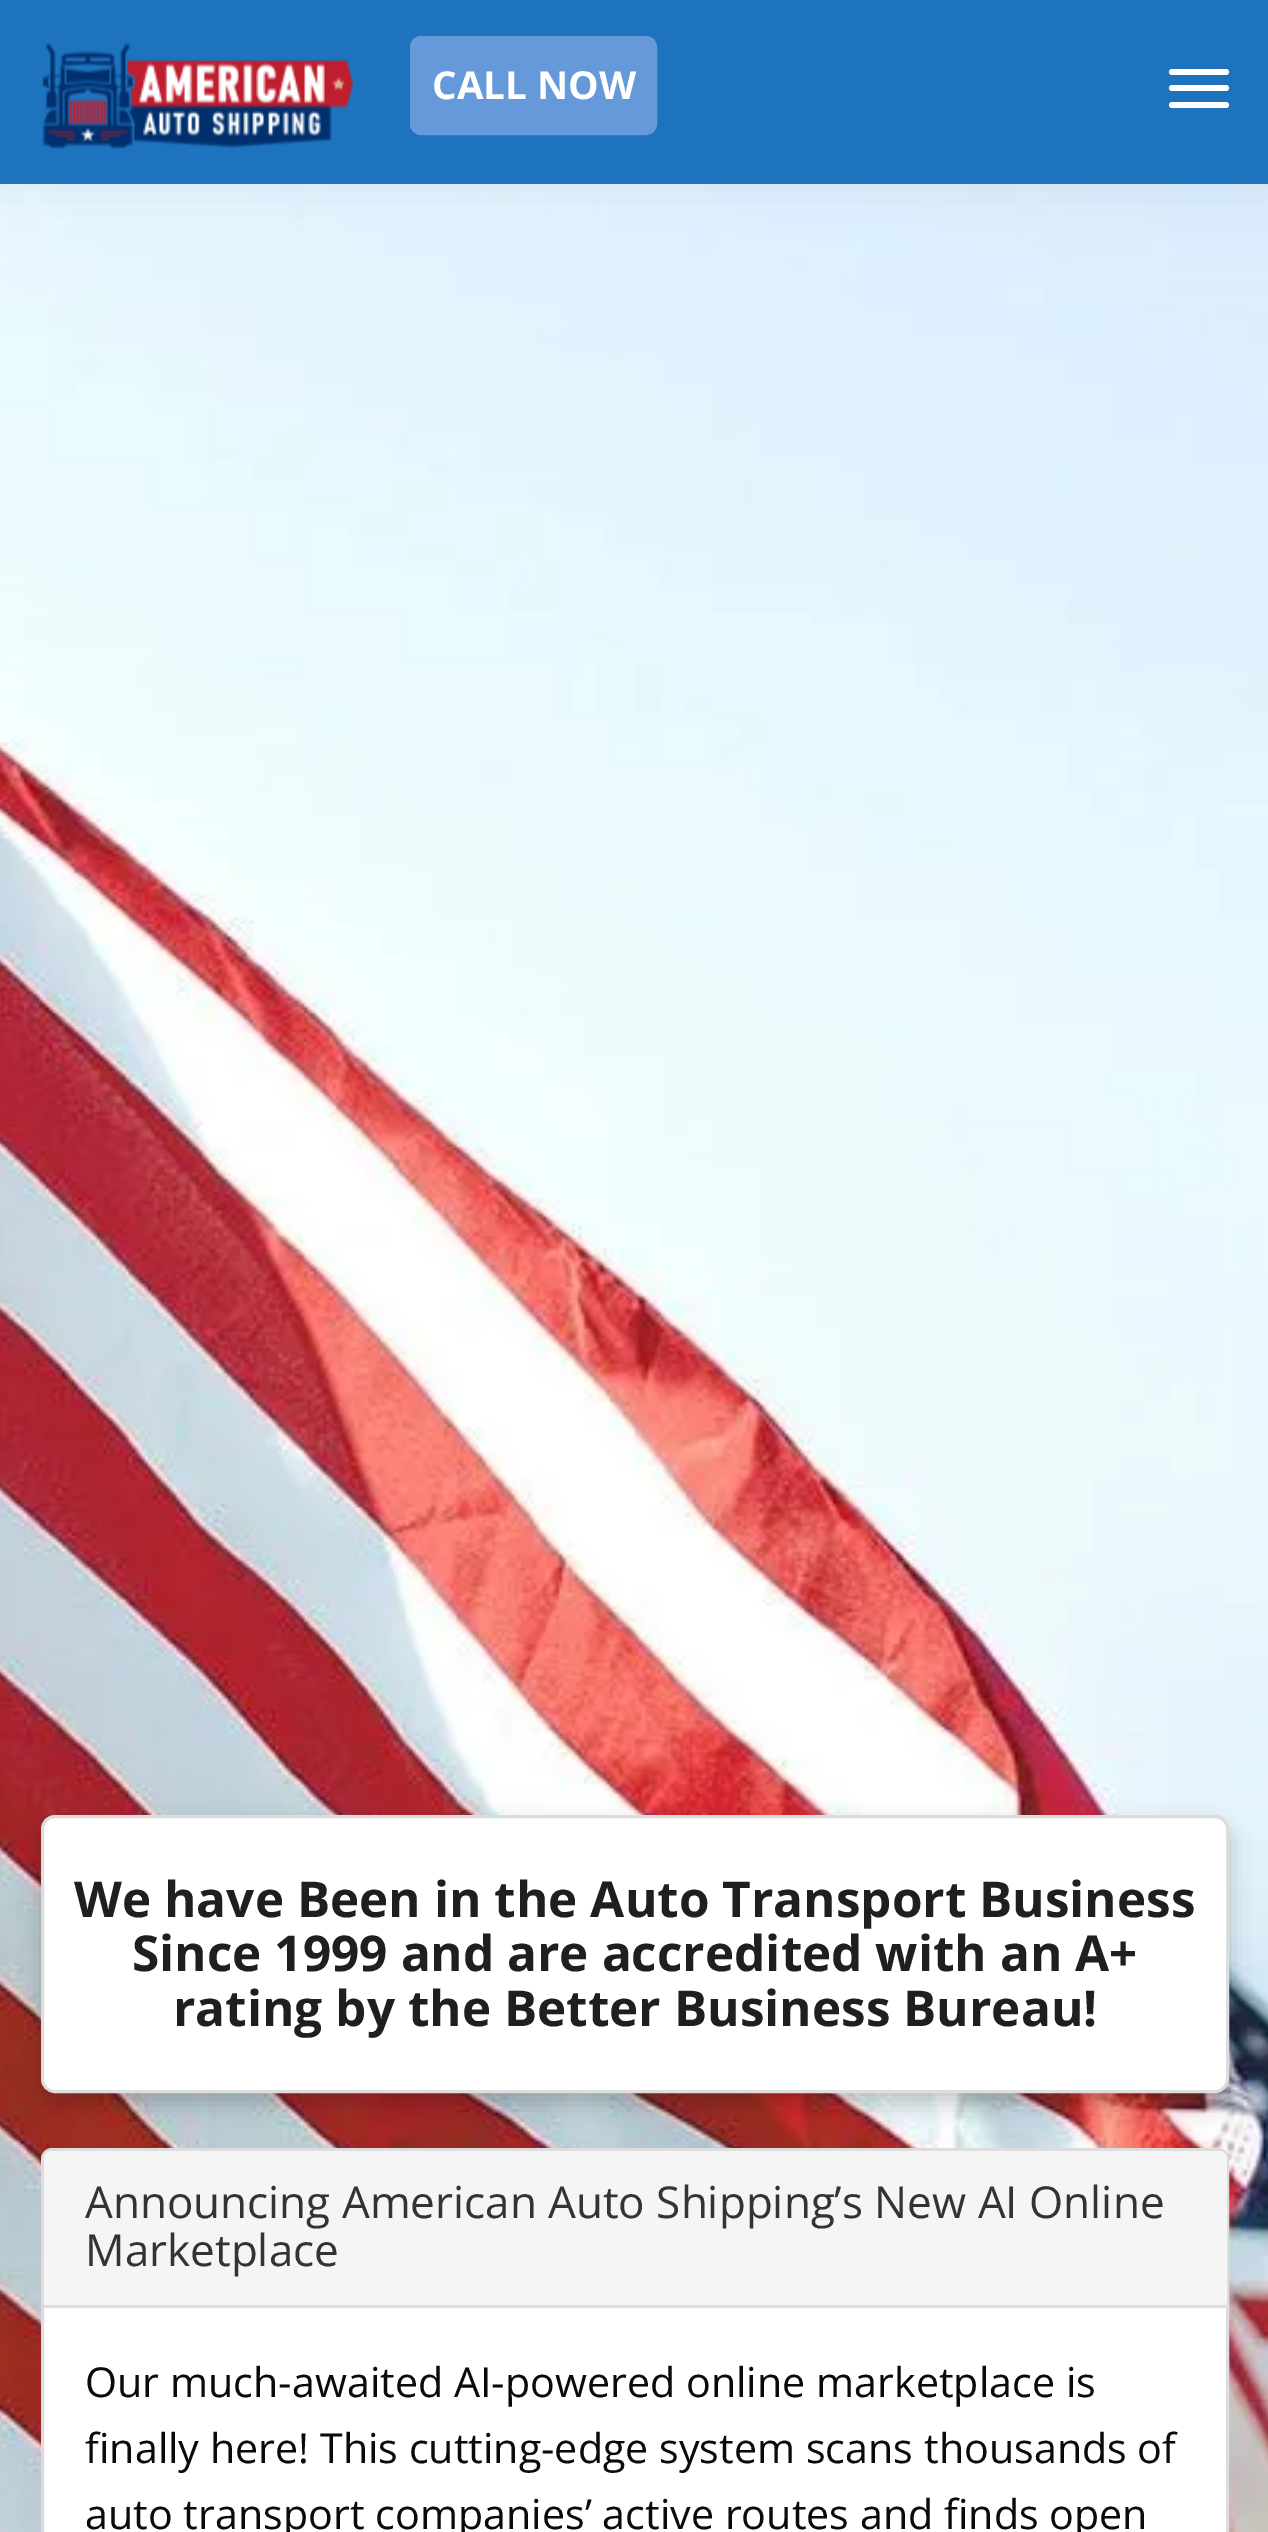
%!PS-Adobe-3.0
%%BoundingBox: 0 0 1268 2532
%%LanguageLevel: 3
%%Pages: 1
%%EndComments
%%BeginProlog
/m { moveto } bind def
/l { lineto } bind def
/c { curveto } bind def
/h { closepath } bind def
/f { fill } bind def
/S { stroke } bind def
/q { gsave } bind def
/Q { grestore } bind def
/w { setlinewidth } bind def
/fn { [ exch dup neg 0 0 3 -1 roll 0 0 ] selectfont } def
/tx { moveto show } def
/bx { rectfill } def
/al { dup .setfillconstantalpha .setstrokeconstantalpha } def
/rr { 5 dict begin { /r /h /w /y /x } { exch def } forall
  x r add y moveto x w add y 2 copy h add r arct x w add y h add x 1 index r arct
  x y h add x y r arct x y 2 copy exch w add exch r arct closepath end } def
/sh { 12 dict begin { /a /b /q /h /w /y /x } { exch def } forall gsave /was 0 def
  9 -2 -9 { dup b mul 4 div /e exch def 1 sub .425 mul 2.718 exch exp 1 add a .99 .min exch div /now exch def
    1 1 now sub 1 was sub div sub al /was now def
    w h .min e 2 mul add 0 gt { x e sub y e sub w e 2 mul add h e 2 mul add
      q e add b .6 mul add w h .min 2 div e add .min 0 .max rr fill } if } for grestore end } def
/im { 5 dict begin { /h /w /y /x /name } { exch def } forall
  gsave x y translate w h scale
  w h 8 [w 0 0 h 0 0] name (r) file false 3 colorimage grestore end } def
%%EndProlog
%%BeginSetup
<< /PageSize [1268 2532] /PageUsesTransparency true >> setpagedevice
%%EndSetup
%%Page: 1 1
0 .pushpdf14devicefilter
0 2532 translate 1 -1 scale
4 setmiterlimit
1 setgray
0 0 1268 2532 bx
(image1.raw) 0 184 1268 2348 im
0 setgray
0 0 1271 184 0 27.5 0.05 sh
0.118 0.451 0.745 setrgbcolor
0 0 1268 184 bx
(image0.raw) 42 42 312 108 im
0.4 0.6 0.851 setrgbcolor
411.5 37.5 244 96 9.5 rr q f Q
3 w
S
/OpenSans-Bold 38.5 fn
1 setgray
(CALL NOW) 432 99 tx
1169 69 60 6 3 rr f
1169 85 60 6 3 rr f
1169 102 60 6 3 rr f
0 setgray
41 1826 1188 278 14 11 0.2 sh
1 setgray
42.5 1816.5 1185 275 12.5 rr q f Q
0.867 setgray
S
/OpenSans-Bold 49.5 fn
0.122 setgray
(We have Been in the Auto Transport Business) 74 1917 tx
(Since 1999 and are accredited with an A+) 132 1971 tx
(rating by the Better Business Bureau!) 173 2026 tx
1 setgray
42.5 2149.5 1185 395 9.5 rr q f Q
0.867 setgray
S
0.961 setgray
52 2151 m 1219 2151 l 1223.5 2151 1227 2154.5 1227 2159 c 1227 2305 l 44 2305 l 44 2159 l 44 2154.5 47.5 2151 52 2151 c h f
/OpenSans-Regular 44 fn
0.2 setgray
(Announcing American Auto Shipping’s New AI Online) 85 2218 tx
(Marketplace) 85 2266 tx
0.867 setgray
44 2305 1183 3 bx
/OpenSans-Regular 41.25 fn
0.039 setgray
(Our much-awaited AI-powered online marketplace is) 85 2397 tx
(finally here! This cutting-edge system scans thousands of) 85 2463 tx
(auto transport companies’ active routes and finds open) 85 2529 tx
.poppdf14devicefilter showpage
%%EOF
